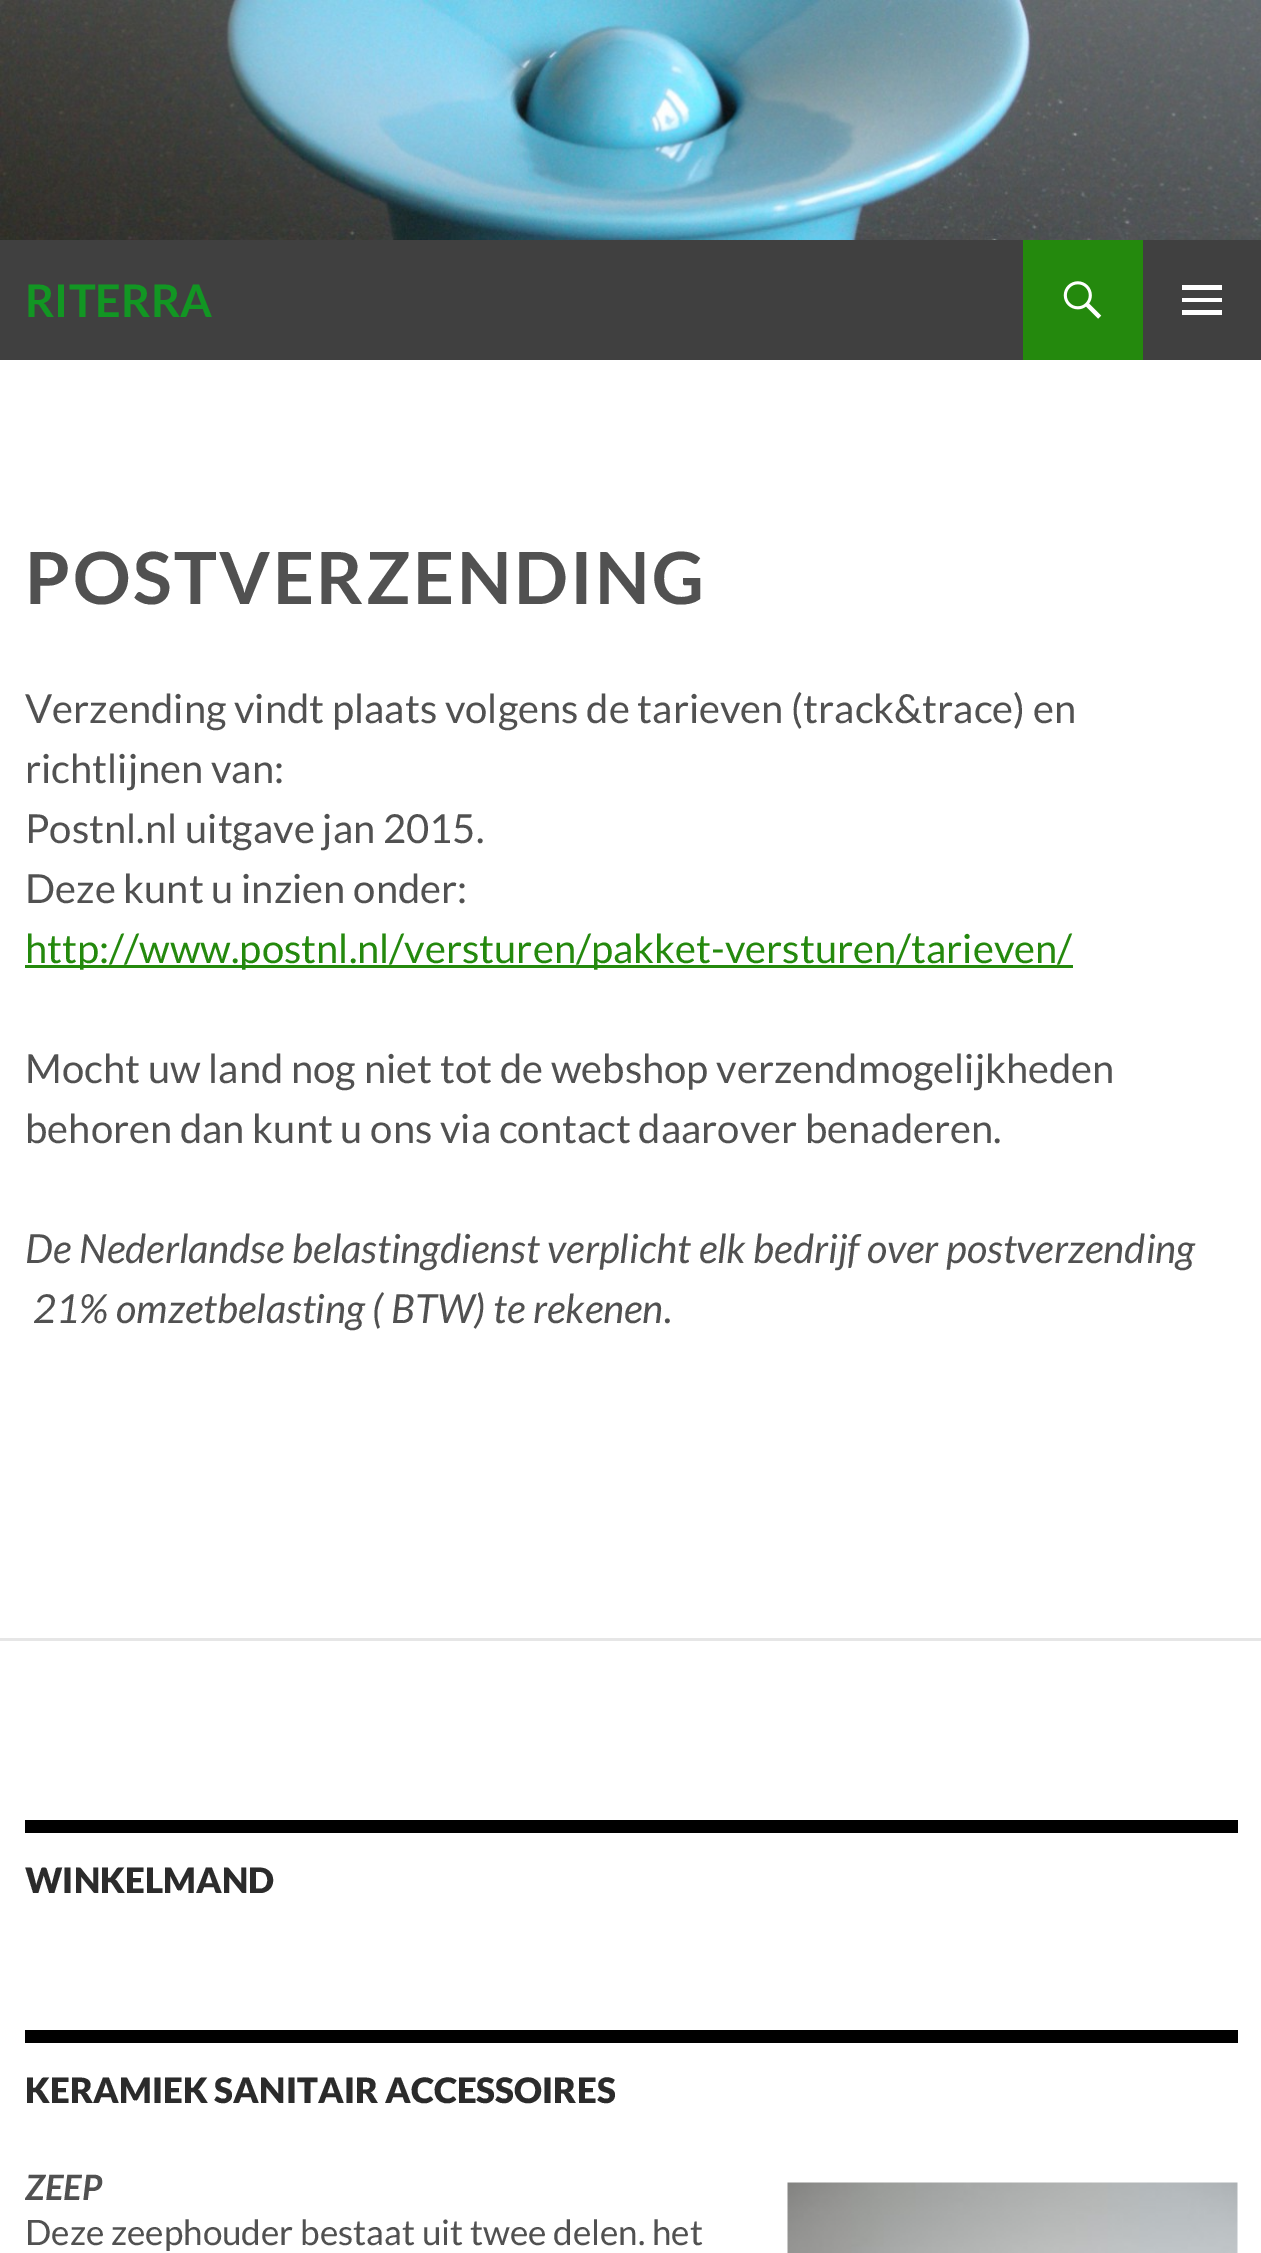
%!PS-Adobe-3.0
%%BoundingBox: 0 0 1261 2253
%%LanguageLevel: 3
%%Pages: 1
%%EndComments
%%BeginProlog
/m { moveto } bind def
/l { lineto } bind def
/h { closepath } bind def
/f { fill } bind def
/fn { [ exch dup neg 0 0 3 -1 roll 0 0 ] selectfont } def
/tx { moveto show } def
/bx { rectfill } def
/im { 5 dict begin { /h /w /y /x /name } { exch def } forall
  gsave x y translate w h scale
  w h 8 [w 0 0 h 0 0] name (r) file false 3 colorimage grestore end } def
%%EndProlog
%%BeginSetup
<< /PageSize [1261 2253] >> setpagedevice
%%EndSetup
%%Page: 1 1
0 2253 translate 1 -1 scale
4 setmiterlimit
1 setgray
0 0 1261 2253 bx
(image0.raw) 0 0 1261 240 im
0.251 setgray
0 240 1261 120 bx
/Lato-Bold 45 fn
0.071 0.588 0.137 setrgbcolor
(RITERRA) 25 317 tx
0.141 0.537 0.051 setrgbcolor
1023 240 120 120 bx
(image1.raw) 1063 281 39 38 im
1 setgray
1182 315 m 1182 310 l 1222 310 l 1222 315 l h 1182 302 m 1182 298 l 1222 298 l 1222 302 l h 1182 290 m 1182 285 l 1222 285 l 1222 290 l h f
/Lato-Bold 72 fn
0.318 setgray
25 604 m 2.5 0 (POSTVERZENDING) ashow
/Lato-Regular 40 fn
(Verzending vindt plaats volgens de tarieven \(track&trace\) en) 25 723 tx
(richtlijnen van:) 25 783 tx
(Postnl.nl uitgave jan 2015.) 25 843 tx
(Deze kunt u inzien onder:) 25 903 tx
0.141 0.537 0.051 setrgbcolor
25 965 1048 3 bx
(http://www.postnl.nl/versturen/pakket-versturen/tarieven/) 25 963 tx
0.318 setgray
(Mocht uw land nog niet tot de webshop verzendmogelijkheden) 25 1083 tx
(behoren dan kunt u ons via contact daarover benaderen.) 25 1143 tx
/Lato-Italic 40 fn
(De Nederlandse belastingdienst verplicht elk bedrijf over postverzending) 25 1263 tx
(21% omzetbelasting \( BTW\) te rekenen.) 33 1323 tx
0.902 setgray
0 1638 1261 3 bx
0 setgray
25 1820 1213 13 bx
/Lato-Black 35 fn
0.169 setgray
(WINKELMAND) 25 1893 tx
0 setgray
25 2030 1213 13 bx
0.169 setgray
(KERAMIEK SANITAIR ACCESSOIRES) 25 2103 tx
/Lato-BoldItalic 35 fn
0.318 setgray
(ZEEP) 25 2200 tx
/Lato-Regular 35 fn
(Deze zeephouder bestaat uit twee delen. het) 25 2245 tx
(image2.raw) 787 2182 451 71 im
showpage
%%EOF
